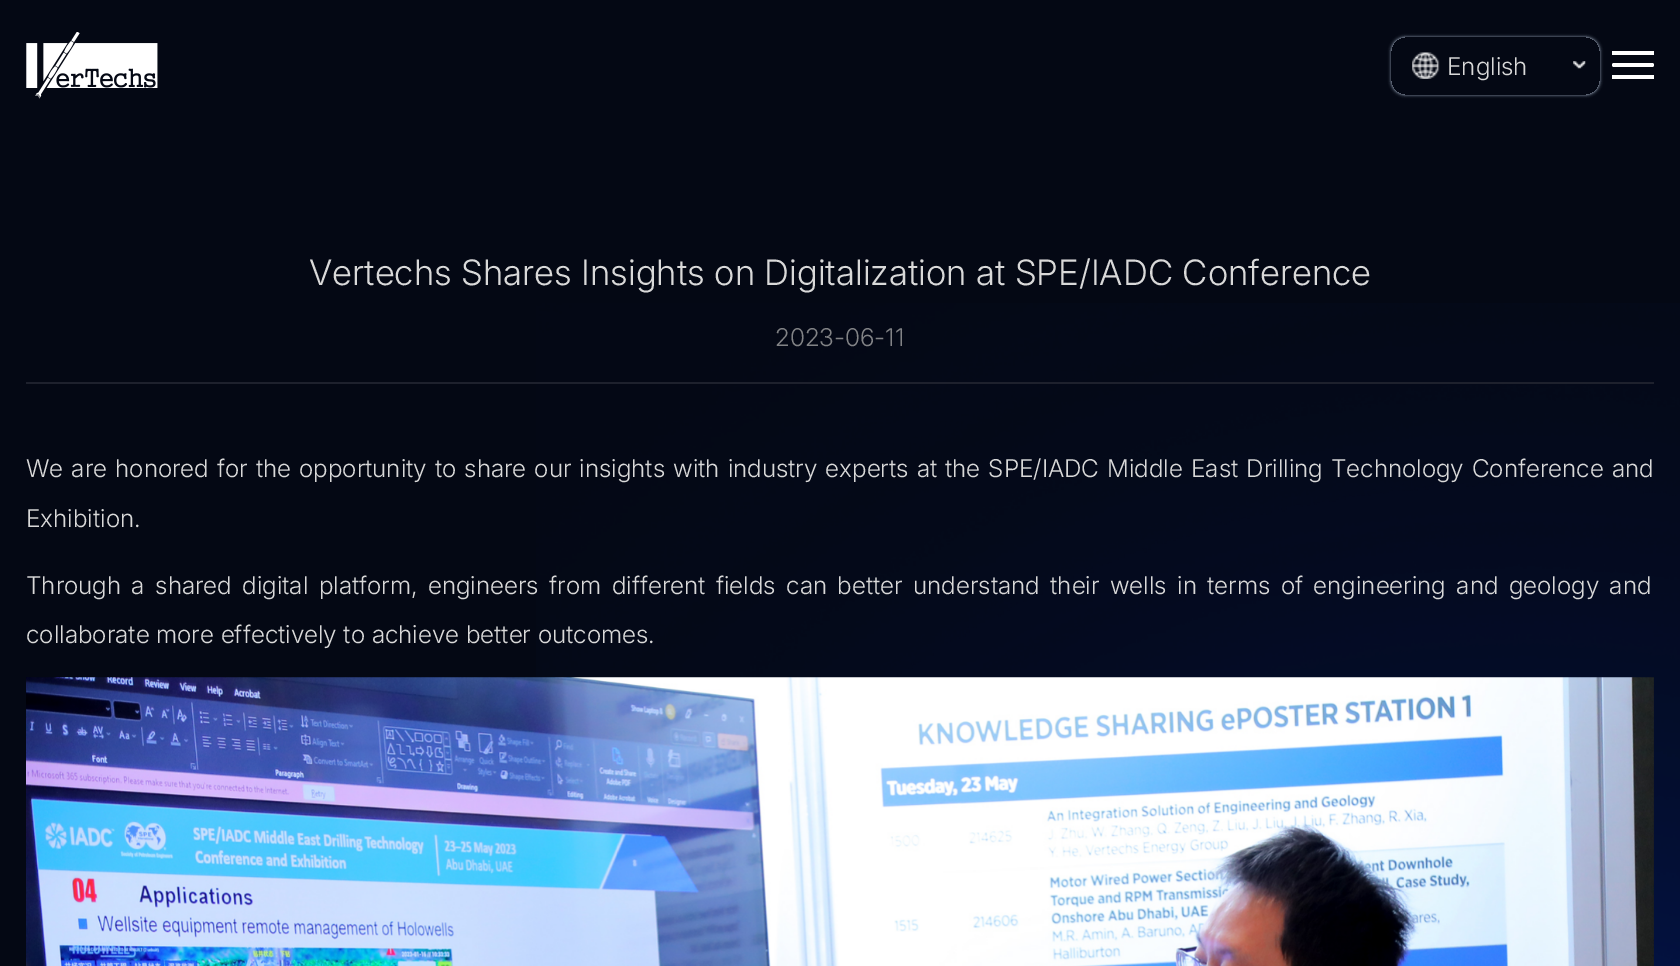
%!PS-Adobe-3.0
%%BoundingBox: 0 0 1680 966
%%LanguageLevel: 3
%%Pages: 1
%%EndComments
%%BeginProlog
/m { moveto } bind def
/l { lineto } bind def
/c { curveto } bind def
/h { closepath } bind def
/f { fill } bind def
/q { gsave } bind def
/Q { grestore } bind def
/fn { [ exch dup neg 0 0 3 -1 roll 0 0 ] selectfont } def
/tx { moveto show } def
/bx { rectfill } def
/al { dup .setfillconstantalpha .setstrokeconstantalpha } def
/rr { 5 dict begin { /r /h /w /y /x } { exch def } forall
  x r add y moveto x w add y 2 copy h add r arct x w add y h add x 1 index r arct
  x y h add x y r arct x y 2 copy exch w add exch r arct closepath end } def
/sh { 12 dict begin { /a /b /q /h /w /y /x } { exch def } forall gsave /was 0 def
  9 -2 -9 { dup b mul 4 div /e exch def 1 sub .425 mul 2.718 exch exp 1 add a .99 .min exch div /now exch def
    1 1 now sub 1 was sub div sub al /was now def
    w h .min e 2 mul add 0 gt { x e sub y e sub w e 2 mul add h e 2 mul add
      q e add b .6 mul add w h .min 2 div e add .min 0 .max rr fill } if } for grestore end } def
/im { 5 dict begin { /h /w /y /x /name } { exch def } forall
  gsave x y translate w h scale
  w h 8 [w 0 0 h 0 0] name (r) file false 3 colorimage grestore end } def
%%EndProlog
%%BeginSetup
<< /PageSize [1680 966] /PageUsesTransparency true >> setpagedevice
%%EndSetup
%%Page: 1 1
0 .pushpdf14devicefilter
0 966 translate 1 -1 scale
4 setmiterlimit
0.016 0.031 0.078 setrgbcolor
0 0 1680 966 bx
(image0.raw) 26 32 132 67 im
q
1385 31 m 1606 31 l 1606 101 l 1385 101 l h 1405 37 m 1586 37 l 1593.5 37 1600 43.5 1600 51 c 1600 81 l 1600 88.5 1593.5 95 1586 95 c 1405 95 l 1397.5 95 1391 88.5 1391 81 c 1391 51 l 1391 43.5 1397.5 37 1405 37 c h eoclip newpath
0.565 0.6 0.671 setrgbcolor
1391 37 209 58 14 1.5 1 sh
Q
(image1.raw) 1412 52 28 27 im
(image2.raw) 1573 61 13 8 im
/Inter-Light 24.5 fn
0.851 setgray
(English) 1447 75 tx
1 setgray
1612 63 42 4 2 rr f
1612 51 42 4 bx
1612 75 42 4 bx
(image4.raw) 536 303 1144 663 im
0.118 0.129 0.176 setrgbcolor
26 382 1628 2 bx
/Inter-Light 35 fn
0.851 setgray
(Vertechs Shares Insights on Digitalization at SPE/IADC Conference) 309 285 tx
/Inter-Light 24.5 fn
0.51 0.514 0.525 setrgbcolor
(2023-06-11) 775 346 tx
0.851 setgray
26 477 m 1.4 0 32 (We are honored for the opportunity to share our insights with industry experts at the SPE/IADC Middle East Drilling Technology Conference and) widthshow
(Exhibition.) 26 527 tx
26 594 m 3.75 0 32 (Through a shared digital platform, engineers from different fields can better understand their wells in terms of engineering and geology and) widthshow
(collaborate more effectively to achieve better outcomes.) 26 643 tx
(image3.raw) 26 677 1628 289 im
.poppdf14devicefilter showpage
%%EOF
